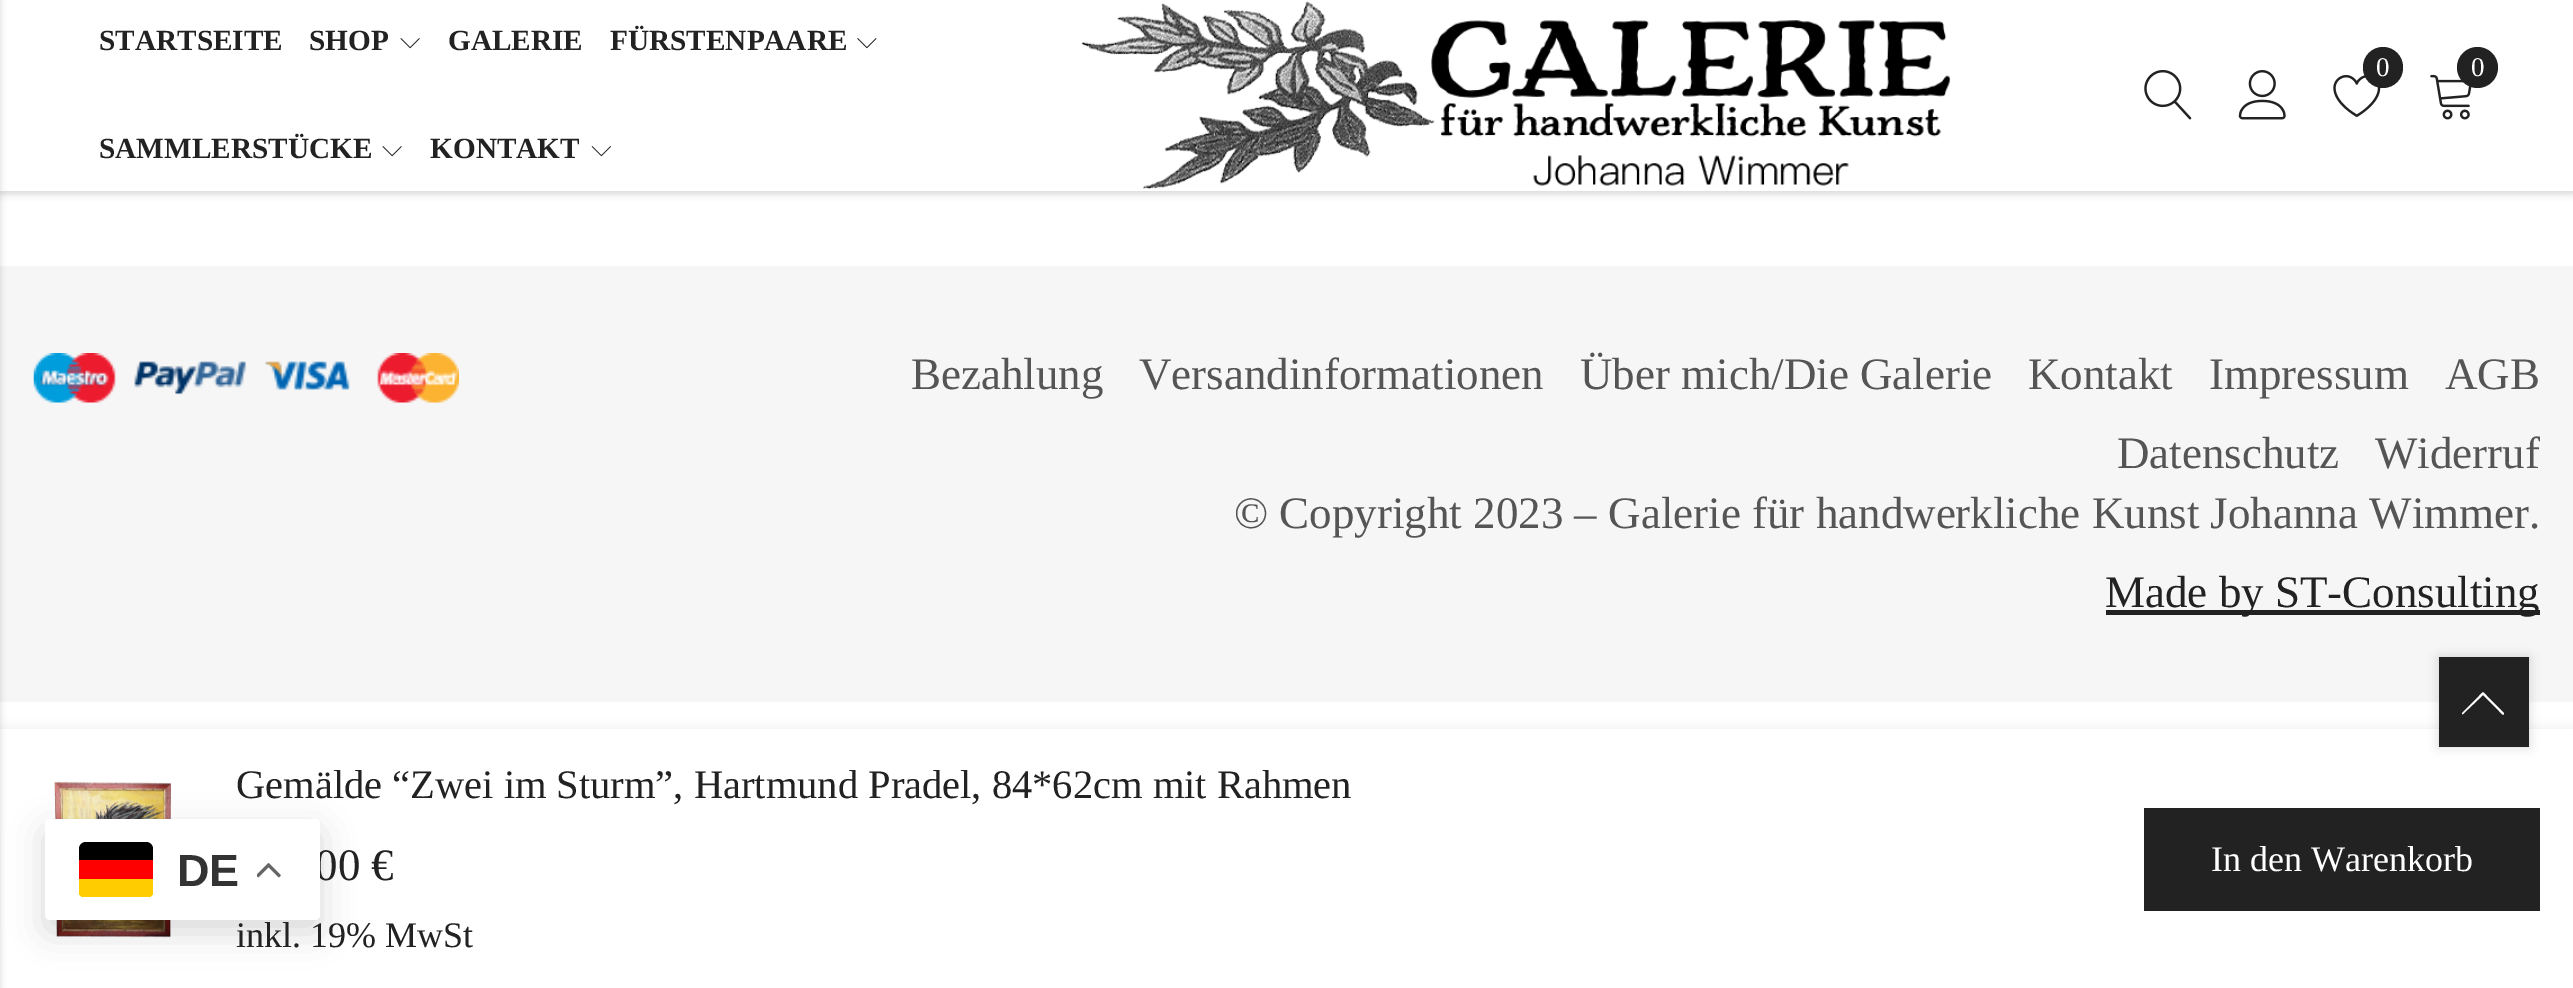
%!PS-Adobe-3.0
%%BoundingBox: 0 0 2573 988
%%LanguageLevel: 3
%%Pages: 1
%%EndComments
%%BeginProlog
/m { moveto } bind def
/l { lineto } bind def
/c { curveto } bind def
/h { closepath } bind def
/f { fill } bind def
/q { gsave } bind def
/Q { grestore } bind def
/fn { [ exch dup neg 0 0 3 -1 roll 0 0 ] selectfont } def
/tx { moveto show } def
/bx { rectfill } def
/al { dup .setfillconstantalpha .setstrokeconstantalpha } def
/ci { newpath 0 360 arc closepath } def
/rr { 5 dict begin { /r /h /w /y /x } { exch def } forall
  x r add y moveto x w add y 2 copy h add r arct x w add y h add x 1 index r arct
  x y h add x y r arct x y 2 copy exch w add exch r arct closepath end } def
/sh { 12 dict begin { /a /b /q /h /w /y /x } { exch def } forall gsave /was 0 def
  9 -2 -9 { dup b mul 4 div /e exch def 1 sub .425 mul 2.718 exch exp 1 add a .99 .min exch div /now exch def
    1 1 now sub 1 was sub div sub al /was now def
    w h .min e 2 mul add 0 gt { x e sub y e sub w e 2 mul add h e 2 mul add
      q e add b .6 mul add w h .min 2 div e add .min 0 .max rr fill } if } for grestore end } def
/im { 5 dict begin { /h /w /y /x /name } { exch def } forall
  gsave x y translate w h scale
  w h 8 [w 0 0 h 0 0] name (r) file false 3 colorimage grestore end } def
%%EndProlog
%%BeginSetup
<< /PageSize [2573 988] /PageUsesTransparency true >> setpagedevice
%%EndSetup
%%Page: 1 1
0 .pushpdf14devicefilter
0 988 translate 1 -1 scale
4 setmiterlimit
1 setgray
0 0 2573 988 bx
0 setgray
0 2 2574 192 0 3.5 0.15 sh
1 setgray
0 0 2573 191 bx
0.965 setgray
0 266 2573 436 bx
0 setgray
0 727 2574 261 0 5.5 0.06 sh
1 setgray
0 729 2573 259 bx
0 setgray
-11 0 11 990 0 3.5 0.15 sh
/LiberationSerif-Bold 29.25 fn
0.133 setgray
(STARTSEITE) 99 50 tx
(SHOP) 309 50 tx
(image0.raw) 400 38 20 11 im
(GALERIE) 448 50 tx
(FÜRSTENPAARE) 610 50 tx
(image1.raw) 857 38 20 11 im
(SAMMLERSTÜCKE) 99 158 tx
(image0.raw) 382 146 20 11 im
(KONTAKT) 430 158 tx
(image2.raw) 591 146 20 11 im
(image3.raw) 1081 1 870 188 im
(image4.raw) 2333 74 48 43 im
2363 47 40 41 20 rr f
/LiberationSerif-Regular 27 fn
1 setgray
(0) 2376 76 tx
(image5.raw) 2430 74 42 46 im
0.133 setgray
2477.5 67.5 20.5 ci f
1 setgray
(0) 2471 76 tx
(image6.raw) 2144 70 48 50 im
(image7.raw) 2238 70 48 50 im
(image8.raw) 33 353 426 50 im
/LiberationSerif-Regular 45 fn
0.333 setgray
(Bezahlung) 911 389 tx
(Versandinformationen) 1139 389 tx
(Über mich/Die Galerie) 1580 389 tx
(Kontakt) 2028 389 tx
(Impressum) 2209 389 tx
(AGB) 2445 389 tx
(Datenschutz) 2117 468 tx
q
691 335 1849 158 rectclip
(Widerruf) 2375 468 tx
Q
(© Copyright 2023 – Galerie für handwerkliche Kunst Johanna Wimmer.) 1234 528 tx
0.133 setgray
2106 610 434 5 bx
(Made by ST-Consulting) 2105 607 tx
0 setgray
2439 657 90 90 0 5.5 0.15 sh
0.133 setgray
2439 657 90 90 bx
1 setgray
2462 713 m 2462 714 2463 715 2463 714 c 2483 695 l 2499 711 l 2501 713 2503 716 2504 714 c 2504 713 l 2487 696 l 2482 691 2484 691 2479 696 c h f
(image10.raw) 54 781 117 157 im
0 setgray
45 830 275 102 5 17 0.15 sh
0.133 setgray
(00 €) 315 880 tx
1 setgray
45 819 275 101 5 rr f
q
79 842 74 56 7 rr clip newpath
1 0.8 0 setrgbcolor
79 879 74 18 bx
Q
0 setgray
86 842 m 146 842 l 150 842 153 845 153 849 c 153 860 l 79 860 l 79 849 l 79 845 82 842 86 842 c h f
1 0 0 setrgbcolor
79 860 74 19 bx
/LiberationSans-Bold 45 fn
0.2 setgray
(DE) 177 886 tx
(image9.raw) 257 863 24 15 im
/LiberationSerif-Regular 40.5 fn
0.133 setgray
(Gemälde “Zwei im Sturm”, Hartmund Pradel, 84*62cm mit Rahmen) 236 798 tx
/LiberationSerif-Regular 36 fn
(inkl. 19% MwSt) 236 947 tx
2144 808 396 103 bx
1 setgray
(In den Warenkorb) 2211 871 tx
.poppdf14devicefilter showpage
%%EOF
